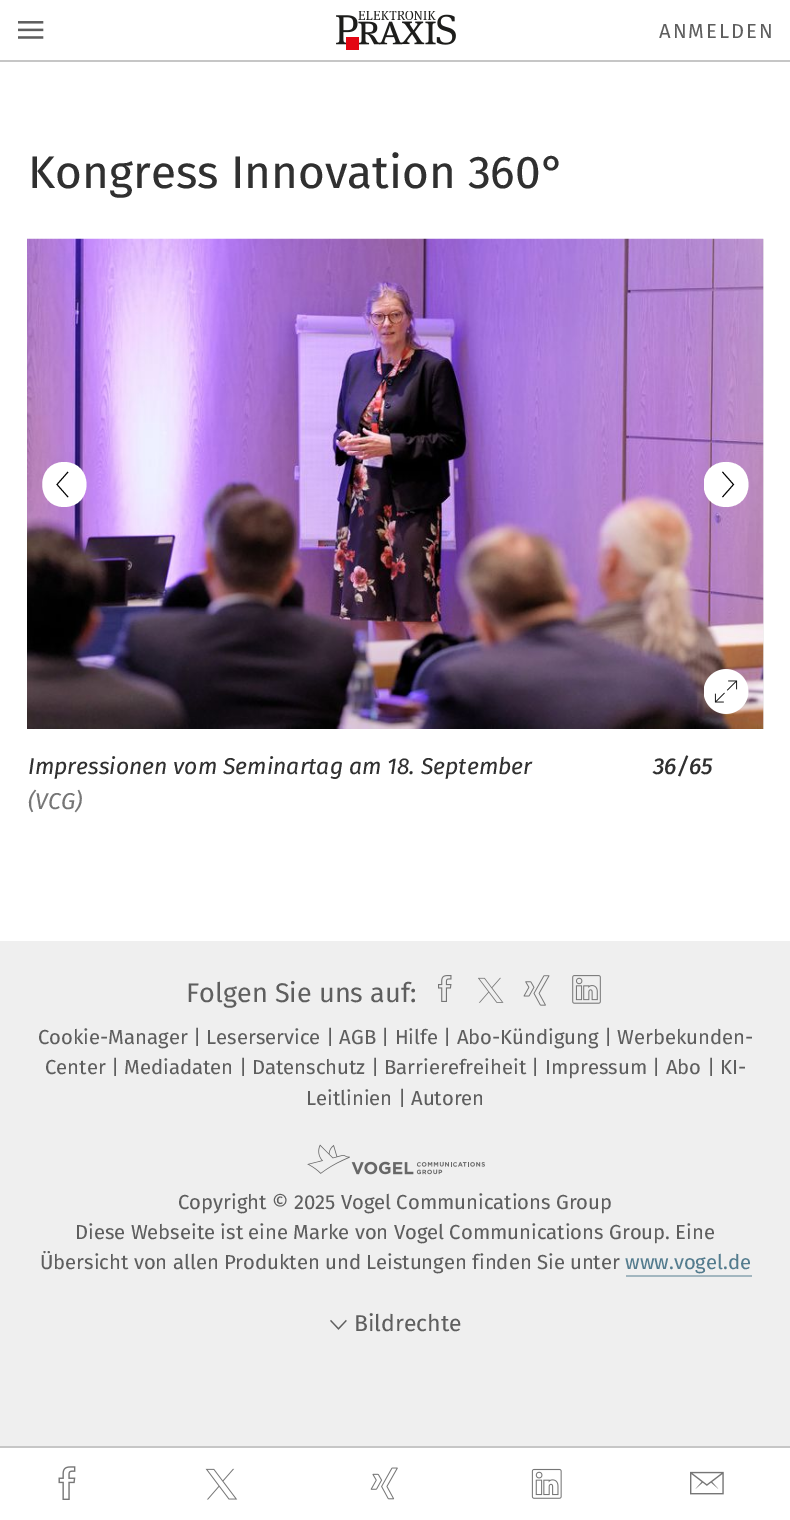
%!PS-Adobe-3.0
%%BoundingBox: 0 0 790 1520
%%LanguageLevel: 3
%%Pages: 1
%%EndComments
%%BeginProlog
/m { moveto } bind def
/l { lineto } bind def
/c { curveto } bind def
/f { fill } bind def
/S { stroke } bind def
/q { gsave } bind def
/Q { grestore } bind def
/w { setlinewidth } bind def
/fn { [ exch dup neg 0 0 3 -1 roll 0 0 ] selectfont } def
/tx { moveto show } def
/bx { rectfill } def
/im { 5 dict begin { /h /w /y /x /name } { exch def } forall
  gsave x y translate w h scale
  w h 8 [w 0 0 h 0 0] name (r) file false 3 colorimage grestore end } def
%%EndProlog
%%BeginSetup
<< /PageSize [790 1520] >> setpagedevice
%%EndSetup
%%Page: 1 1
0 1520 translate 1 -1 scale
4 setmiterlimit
0.937 setgray
0 0 790 1520 bx
1 setgray
0 62 790 879 bx
0 0 790 60 bx
0.776 setgray
0 60 790 2 bx
(image0.raw) 18 21 26 18 im
(image1.raw) 336 11 120 39 im
/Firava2-Regular 20.25 fn
0.369 setgray
659 38 m 2 0 (ANMELDEN) ashow
/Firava-Regular 45.9 fn
0.188 setgray
(Kongress Innovation 360°) 28 188 tx
0.937 setgray
763 239 1 490 bx
(image2.raw) 27 238 737 491 im
1 setgray
64 507 m 94 507 94 462 64 462 c 35 462 35 507 64 507 c f
0 setgray
0.9 w
68 472 m 57 484.5 l 68 497 l S
q
704 462 45 45 rectclip
1 setgray
726 462 m 696 462 696 507 726 507 c 756 507 756 462 726 462 c f
Q
722.5 497 m 733.5 484.5 l 722.5 472 l S
(image3.raw) 704 669 45 45 im
/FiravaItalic-Italic 22.95 fn
0.188 setgray
(Impressionen vom Seminartag am 18. September) 28 774 tx
0.463 setgray
(\(VCG\)) 28 809 tx
/FiravaItalic-MediumItalic 22.95 fn
0.188 setgray
(36/65) 653 774 tx
1 setgray
0 1448 790 72 bx
0.776 setgray
0 1446 790 2 bx
(image4.raw) 58 1466 18 34 im
(image5.raw) 205 1468 33 32 im
(image6.raw) 370 1467 28 33 im
(image7.raw) 531 1468 31 31 im
(image8.raw) 690 1471 34 24 im
/Firava2-Regular 27 fn
0.369 setgray
(Folgen Sie uns auf:) 186 1002 tx
(image9.raw) 438 975 14 27 im
(image10.raw) 478 977 26 26 im
(image11.raw) 523 975 27 31 im
(image12.raw) 572 975 29 29 im
/Firava-Regular 20.25 fn
(Cookie-Manager | Leserservice | AGB | Hilfe | Abo-Kündigung | Werbekunden-) 38 1044 tx
(Center | Mediadaten | Datenschutz | Barrierefreiheit | Impressum | Abo | KI-) 45 1074 tx
(Leitlinien | Autoren) 306 1105 tx
(image13.raw) 307 1144 178 31 im
(Copyright © 2025 Vogel Communications Group) 178 1209 tx
(Diese Webseite ist eine Marke von Vogel Communications Group. Eine) 75 1239 tx
(Übersicht von allen Produkten und Leistungen finden Sie unter) 40 1269 tx
0.329 0.486 0.557 setrgbcolor
(www.vogel.de) 625 1269 tx
0.635 0.714 0.749 setrgbcolor
626 1275 126 2 bx
(image14.raw) 330 1319 17 11 im
/Firava-Regular 22.95 fn
0.369 setgray
(Bildrechte) 354 1331 tx
showpage
%%EOF
